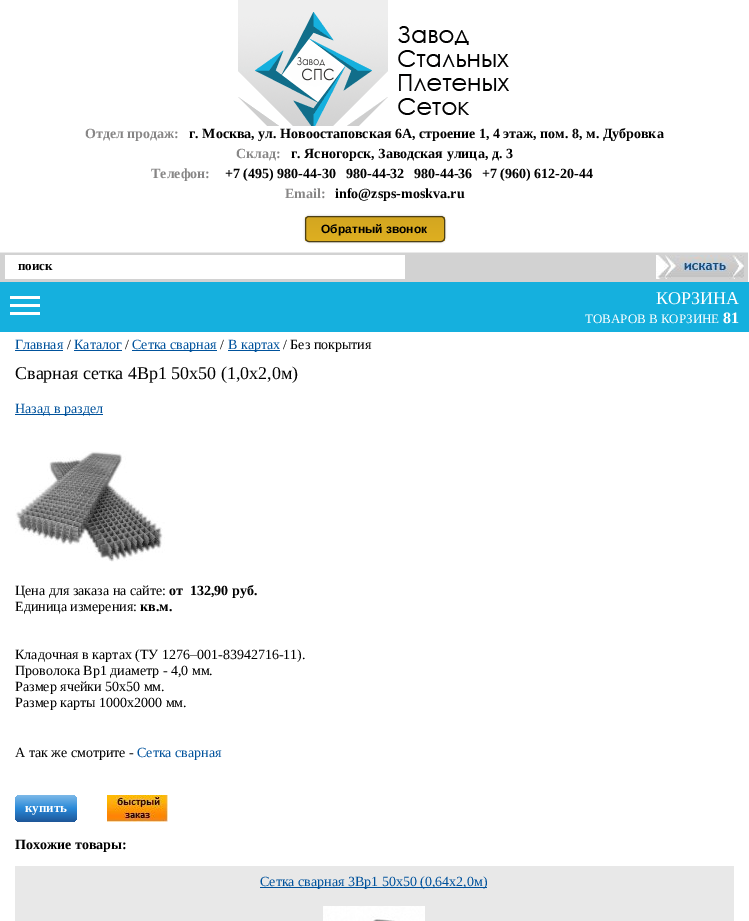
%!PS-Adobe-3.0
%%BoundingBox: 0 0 749 921
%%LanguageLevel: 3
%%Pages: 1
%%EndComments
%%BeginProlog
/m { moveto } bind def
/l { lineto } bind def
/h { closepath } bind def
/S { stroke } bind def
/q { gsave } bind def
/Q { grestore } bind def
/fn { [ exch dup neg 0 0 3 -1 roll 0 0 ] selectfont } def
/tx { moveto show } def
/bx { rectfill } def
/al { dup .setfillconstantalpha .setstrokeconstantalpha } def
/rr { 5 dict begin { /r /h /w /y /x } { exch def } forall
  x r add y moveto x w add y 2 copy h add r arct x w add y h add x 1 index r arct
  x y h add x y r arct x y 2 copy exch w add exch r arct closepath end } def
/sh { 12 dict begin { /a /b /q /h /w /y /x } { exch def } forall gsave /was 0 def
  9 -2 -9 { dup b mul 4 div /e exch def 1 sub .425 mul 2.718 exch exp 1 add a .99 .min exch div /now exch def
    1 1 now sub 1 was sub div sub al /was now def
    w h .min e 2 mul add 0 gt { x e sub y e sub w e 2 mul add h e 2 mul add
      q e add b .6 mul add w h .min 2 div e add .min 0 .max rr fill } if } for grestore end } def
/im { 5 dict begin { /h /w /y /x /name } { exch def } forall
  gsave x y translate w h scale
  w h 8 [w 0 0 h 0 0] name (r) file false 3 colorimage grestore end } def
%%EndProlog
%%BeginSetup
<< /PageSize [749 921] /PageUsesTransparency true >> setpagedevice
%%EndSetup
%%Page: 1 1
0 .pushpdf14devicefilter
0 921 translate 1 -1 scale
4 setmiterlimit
1 setgray
0 0 749 921 bx
(image0.raw) 238 0 271 126 im
/LiberationSerif-Bold 14 fn
0.529 0.525 0.525 setrgbcolor
(Отдел продаж:) 85 138 tx
0 setgray
(г. Москва, ул. Новоостаповская 6А, строение 1, 4 этаж, пом. 8, м. Дубровка) 189 138 tx
0.529 0.525 0.525 setrgbcolor
(Склад:) 236 158 tx
0 setgray
(г. Ясногорск, Заводская улица, д. 3) 291 158 tx
0.529 0.525 0.525 setrgbcolor
(Телефон:) 151 178 tx
0 setgray
(+7 \(495\) 980-44-30) 225 178 tx
(980-44-32) 346 178 tx
(980-44-36) 414 178 tx
(+7 \(960\) 612-20-44) 482 178 tx
0.529 0.525 0.525 setrgbcolor
(Email:) 285 198 tx
0 setgray
(info@zsps-moskva.ru) 335 198 tx
0.729 setgray
305 216 140 26 4 1 1 sh
q
305 216 140 26 4 rr clip newpath
q 305 217 m 445 217 l 445 241 l 305 241 l h clip newpath
<< /ShadingType 2 /ColorSpace /DeviceRGB /Coords [375 217 375 241] /Extend [true true] /Function << /FunctionType 2 /Domain [0 1] /C0 [0.827 0.651 0.125] /C1 [0.871 0.686 0.129] /N 1 >> >> shfill Q
Q
0.302 0.247 0.075 setrgbcolor
305.5 216.5 139 25 3.5 rr S
/LiberationSans-Bold 12 fn
0 setgray
(Обратный звонок) 321 233 tx
0.824 setgray
0 253 748 29 bx
0.914 setgray
0 252 748 1 bx
1 setgray
5 255 400 24 bx
/LiberationSerif-Bold 13 fn
0 setgray
(поиск) 18 270 tx
(image1.raw) 656 255 88 24 im
0.082 0.69 0.871 setrgbcolor
0 282 749 50 bx
1 setgray
10 304 30 3 bx
10 296 30 3 bx
10 312 30 3 bx
/LiberationSerif-Regular 18 fn
(КОРЗИНА) 656 304 tx
/LiberationSerif-Regular 13 fn
(ТОВАРОВ В КОРЗИНЕ) 585 323 tx
/LiberationSerif-Bold 16 fn
(81) 723 323 tx
/LiberationSerif-Regular 14 fn
0 0.322 0.612 setrgbcolor
(Главная) 15 349 tx
15 350 48 1 bx
0 setgray
(/) 67 349 tx
0 0.322 0.612 setrgbcolor
(Каталог) 74 349 tx
74 350 48 1 bx
0 setgray
(/) 125 349 tx
0 0.322 0.612 setrgbcolor
132 350 85 1 bx
(Сетка сварная) 132 349 tx
0 setgray
(/) 220 349 tx
0 0.322 0.612 setrgbcolor
228 350 52 1 bx
(В картах) 228 349 tx
0 setgray
(/ Без покрытия) 283 349 tx
/LiberationSerif-Regular 18 fn
(Сварная сетка 4Вр1 50х50 \(1,0х2,0м\)) 15 379 tx
0 0.322 0.612 setrgbcolor
15 414 88 1 bx
/LiberationSerif-Regular 14 fn
(Назад в раздел) 15 413 tx
(image2.raw) 15 451 150 111 im
0 setgray
(Цена для заказа на сайте:) 15 595 tx
/LiberationSerif-Bold 14 fn
(от  132,90 руб.) 169 595 tx
/LiberationSerif-Regular 14 fn
(Единица измерения:) 15 611 tx
/LiberationSerif-Bold 14 fn
(кв.м.) 140 611 tx
/LiberationSerif-Regular 14 fn
(Кладочная в картах \(ТУ 1276–001-83942716-11\).) 15 659 tx
(Проволока Вр1 диаметр - 4,0 мм.) 15 675 tx
(Размер ячейки 50х50 мм.) 15 691 tx
(Размер карты 1000х2000 мм.) 15 707 tx
(А так же смотрите -) 15 757 tx
0 0.322 0.612 setrgbcolor
(Сетка сварная) 137 757 tx
q 15 795 62 27 5 rr clip newpath
<< /ShadingType 2 /ColorSpace /DeviceRGB /Coords [46 795 46 822] /Extend [true true] /Function << /FunctionType 3 /Domain [0 1] /Functions [<< /FunctionType 2 /Domain [0 1] /C0 [0.49 0.725 0.91] /C1 [0.161 0.537 0.847] /N 1 >> << /FunctionType 2 /Domain [0 1] /C0 [0.161 0.537 0.847] /C1 [0.118 0.341 0.6] /N 1 >> << /FunctionType 2 /Domain [0 1] /C0 [0.118 0.341 0.6] /C1 [0.118 0.341 0.6] /N 1 >>] /Bounds [0.5 0.99] /Encode [0 1 0 1 0 1] >> >> shfill Q
/LiberationSerif-Bold 13 fn
1 setgray
(купить) 25 812 tx
(image3.raw) 107 795 61 27 im
/LiberationSerif-Bold 14 fn
0 setgray
(Похожие товары:) 15 849 tx
0.91 setgray
15 866 719 55 bx
0 0.322 0.612 setrgbcolor
260 887 227 1 bx
/LiberationSerif-Regular 14 fn
(Сетка сварная 3Вр1 50х50 \(0,64х2,0м\)) 260 886 tx
(image4.raw) 323 906 102 15 im
.poppdf14devicefilter showpage
%%EOF
